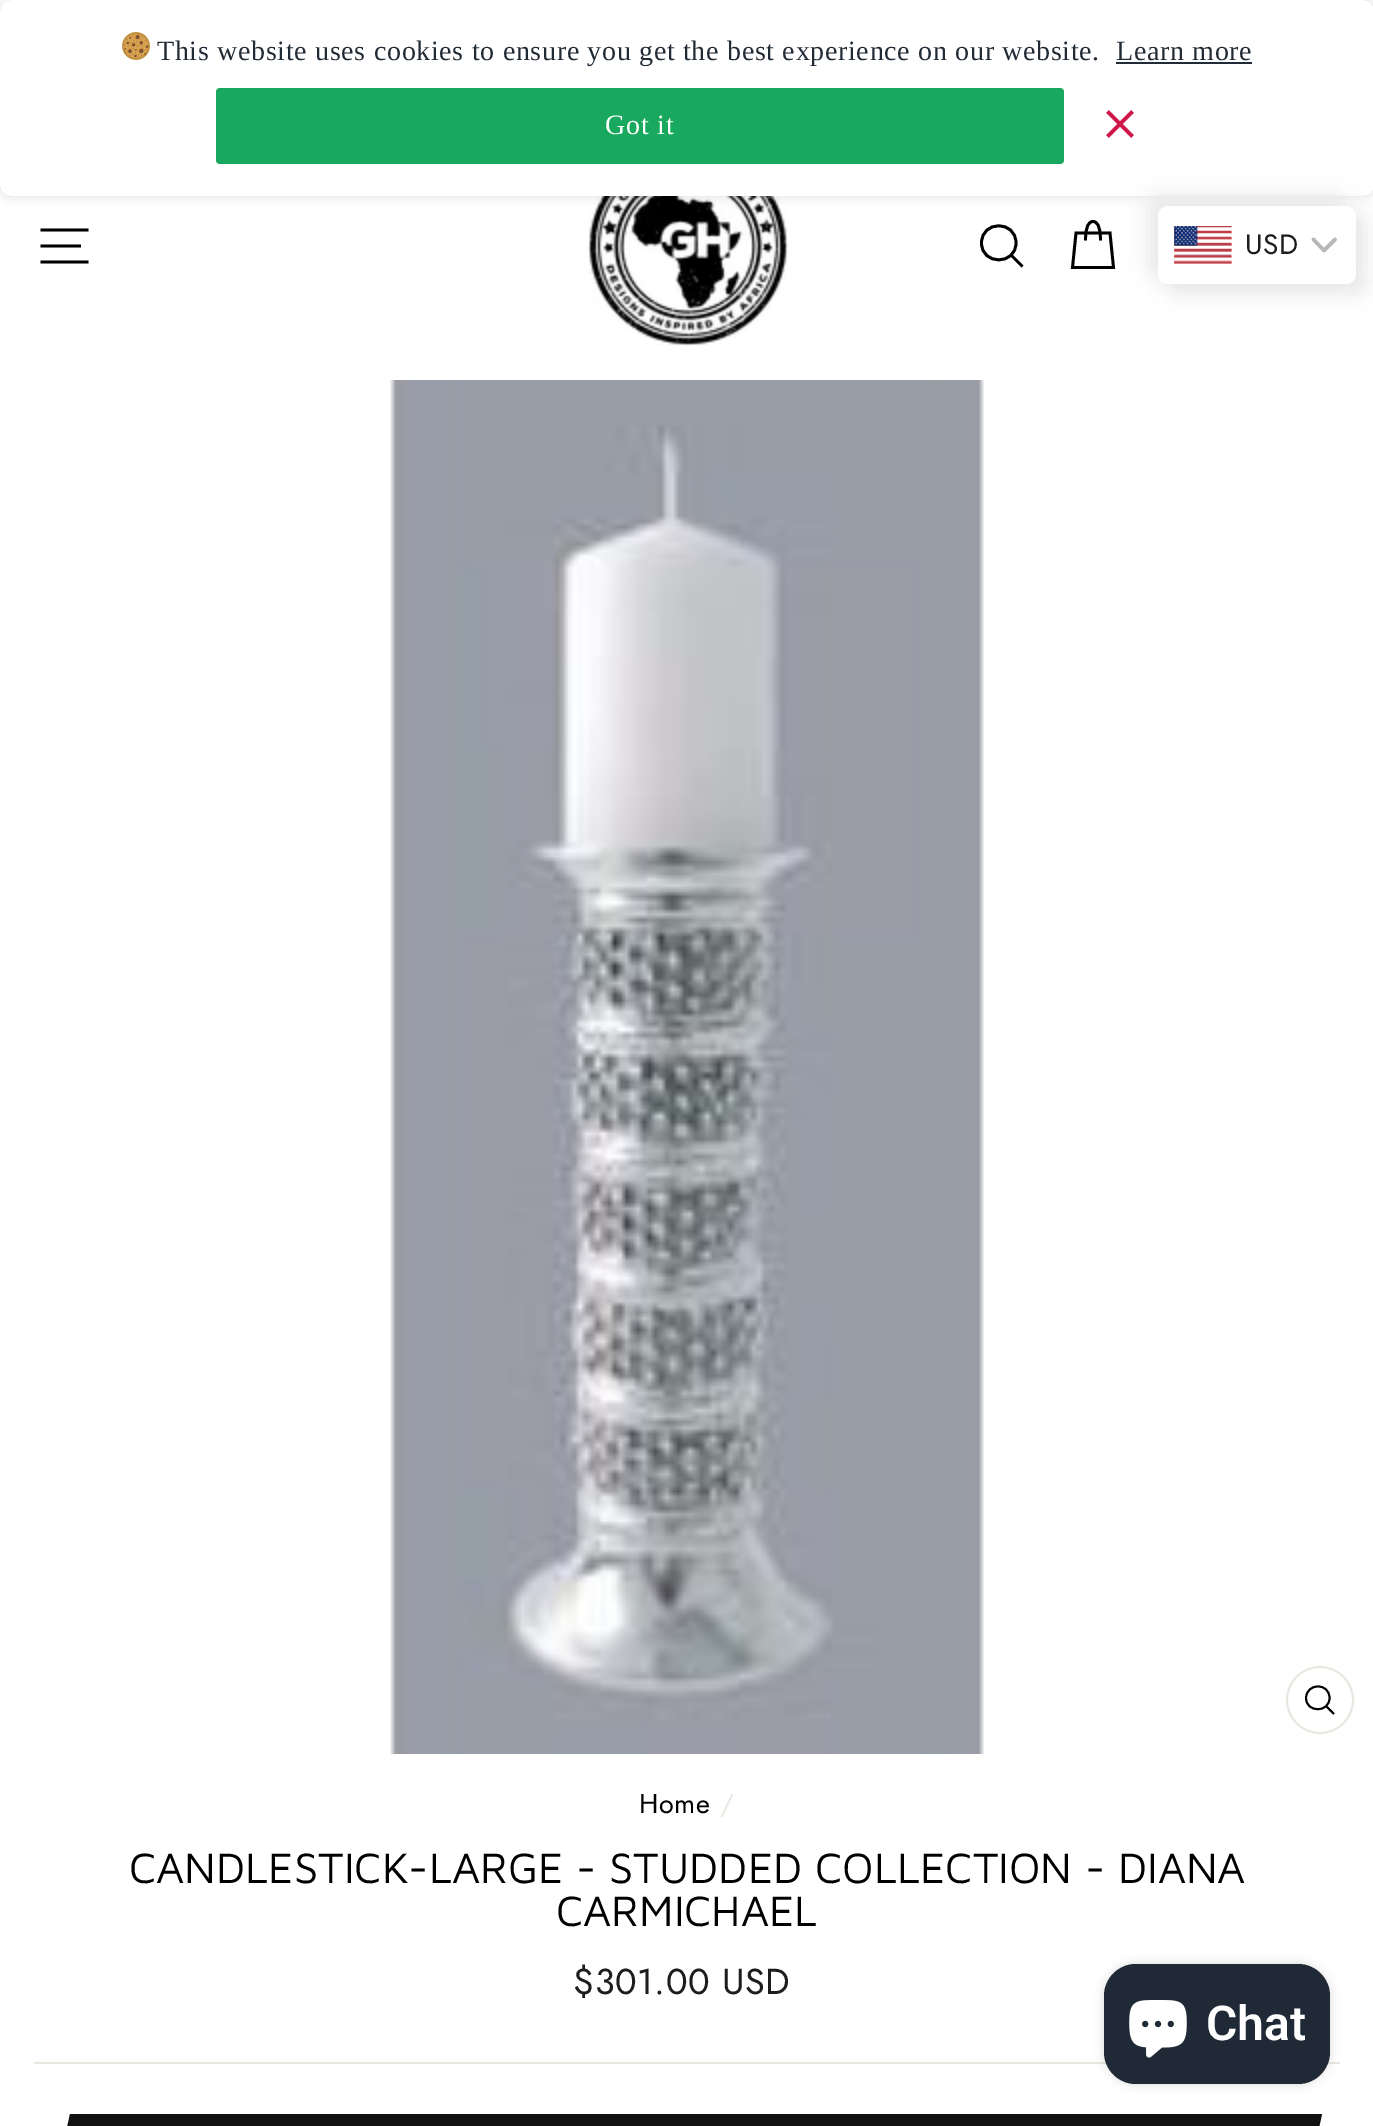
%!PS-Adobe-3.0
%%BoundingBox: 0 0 1373 2126
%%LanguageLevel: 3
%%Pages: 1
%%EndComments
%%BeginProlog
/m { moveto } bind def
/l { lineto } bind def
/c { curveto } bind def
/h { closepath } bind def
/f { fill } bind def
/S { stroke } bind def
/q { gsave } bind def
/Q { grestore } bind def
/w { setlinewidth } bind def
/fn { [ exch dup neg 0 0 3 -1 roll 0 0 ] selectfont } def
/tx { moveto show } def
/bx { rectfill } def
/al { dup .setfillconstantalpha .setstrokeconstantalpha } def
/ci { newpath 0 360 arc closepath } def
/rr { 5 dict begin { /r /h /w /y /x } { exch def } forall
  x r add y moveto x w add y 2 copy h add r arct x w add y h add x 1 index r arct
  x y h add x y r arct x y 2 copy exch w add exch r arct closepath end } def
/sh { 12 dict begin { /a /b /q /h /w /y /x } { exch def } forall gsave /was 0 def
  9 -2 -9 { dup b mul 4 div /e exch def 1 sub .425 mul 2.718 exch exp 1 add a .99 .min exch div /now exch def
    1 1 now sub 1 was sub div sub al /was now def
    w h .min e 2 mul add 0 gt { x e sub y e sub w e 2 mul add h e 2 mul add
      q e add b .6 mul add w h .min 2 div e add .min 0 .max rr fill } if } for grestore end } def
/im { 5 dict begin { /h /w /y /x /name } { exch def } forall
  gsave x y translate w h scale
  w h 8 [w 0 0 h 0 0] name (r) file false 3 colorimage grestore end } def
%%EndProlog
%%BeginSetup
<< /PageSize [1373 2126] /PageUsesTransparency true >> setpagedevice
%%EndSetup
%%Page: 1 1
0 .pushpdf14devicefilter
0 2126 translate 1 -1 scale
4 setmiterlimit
1 setgray
0 0 1373 2126 bx
(image2.raw) 588 196 200 150 im
q
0 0 m 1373 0 l 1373 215 l 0 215 l h 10 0 m 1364 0 l 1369.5 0 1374 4.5 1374 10 c 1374 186 l 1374 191.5 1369.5 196 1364 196 c 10 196 l 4.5 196 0 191.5 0 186 c 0 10 l 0 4.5 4.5 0 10 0 c h eoclip newpath
0 setgray
0 0 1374 196 10 6 0.12 sh
Q
(image0.raw) 122 32 28 28 im
/LiberationSerif-Regular 28 fn
0.129 0.169 0.212 setrgbcolor
157 60 m 0.68 0 (This website uses cookies to ensure you get the best experience on our website.) ashow
1116 60 m 0.68 0 (Learn more) ashow
1116 62 136 2 bx
0.094 0.663 0.369 setrgbcolor
216 88 848 76 4 rr f
1 setgray
605 134 m 0.75 0 (Got it) ashow
(image1.raw) 1106 110 28 28 im
0 setgray
2.8 w
40.5 230 m 88.5 230 l 40.5 246 m 81 246 l 40.5 262 m 88.5 262 l S
1016 243 m 1016 265.5 981.5 265.5 981.5 243 c 981.5 220 1016 220 1016 243 c h 1022.5 266.5 m 1011.5 255.5 l S
1085.5 240.5 m 1085.5 225.5 1089 221.5 1093 221.5 c 1097 221.5 1100.5 225.5 1100.5 240.5 c 1076 233 m 1110 233 l 1113.5 267.5 l 1072.5 267.5 l h S
0.91 setgray
1148 196 198 78 10 10 1 sh
1168 216 198 78 10 10 1 sh
1 setgray
1158 206 198 78 10 rr f
(image3.raw) 1174 226 58 38 im
/Jost-Regular 28 fn
0.11 0.114 0.114 setrgbcolor
1245 254 m 0.68 0 (USD) ashow
0.718 setgray
3.6 w
1 setlinecap
1 setlinejoin
1313.5 239.5 m 1324 250.5 l 1335 239.5 l S
(image4.raw) 390 380 594 1374 im
0.91 0.91 0.882 setrgbcolor
2 w
0 setlinecap
0 setlinejoin
1320 1700 33 ci S
0 setgray
1.9 w
1329.5 1698 m 1329.5 1713 1306 1713 1306 1698 c 1306.5 1682.5 1329.5 1682.5 1329.5 1698 c h 1334 1714 m 1326 1706 l S
/Jost-Regular 27 fn
639 1813 m 0.68 0 (Home) ashow
0.91 0.91 0.882 setrgbcolor
720 1813 m 0.68 0 (/) ashow
/MavenPro-Regular 43.85 fn
0 setgray
(CANDLESTICK-LARGE - STUDDED COLLECTION - DIANA) 129 1883 tx
(CARMICHAEL) 556 1926 tx
/Jost-Regular 36 fn
0.11 0.114 0.114 setrgbcolor
573 1994 m 0.68 0 ($301.00 USD) ashow
0.91 0.91 0.882 setrgbcolor
34 2062 1306 2 bx
0.067 setgray
107 2114 1175 12 bx
70 2114 m 110 2114 l 92 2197 l 52 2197 l h f
1282 2114 m 1322 2114 l 1304 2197 l 1264 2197 l h f
0 setgray
1104 1964 226 120 32 5 0.15 sh
0.125 0.165 0.212 setrgbcolor
1104 1964 226 120 32 rr f
(image5.raw) 1129 2000 58 58 im
/Roboto-SemiBold 48 fn
1 setgray
(Chat) 1206 2040 tx
.poppdf14devicefilter showpage
%%EOF
